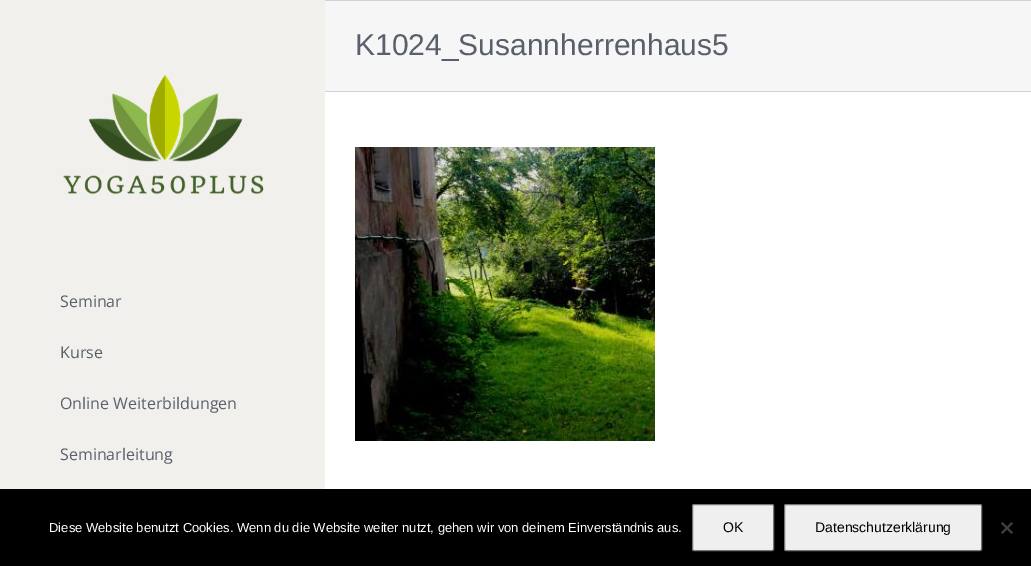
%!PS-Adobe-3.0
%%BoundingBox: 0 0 1031 566
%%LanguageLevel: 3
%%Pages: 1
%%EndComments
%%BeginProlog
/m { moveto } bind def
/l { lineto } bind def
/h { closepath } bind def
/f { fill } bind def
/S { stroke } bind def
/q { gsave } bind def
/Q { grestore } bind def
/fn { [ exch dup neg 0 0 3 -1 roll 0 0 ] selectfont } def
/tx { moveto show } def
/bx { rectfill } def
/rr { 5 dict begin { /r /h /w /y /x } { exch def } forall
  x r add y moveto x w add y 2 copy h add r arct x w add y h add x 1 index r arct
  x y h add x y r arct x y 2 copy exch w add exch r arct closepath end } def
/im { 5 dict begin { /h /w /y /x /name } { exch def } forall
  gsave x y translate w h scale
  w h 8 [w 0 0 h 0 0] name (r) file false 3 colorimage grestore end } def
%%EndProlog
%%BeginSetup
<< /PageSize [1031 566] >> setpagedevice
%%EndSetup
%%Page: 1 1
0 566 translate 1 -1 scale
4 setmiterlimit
1 setgray
0 0 1031 566 bx
0.965 setgray
325 1 706 90 bx
0.824 0.827 0.831 setrgbcolor
325 0 706 1 bx
325 91 706 1 bx
/LiberationSans-Regular 30 fn
0.349 0.373 0.42 setrgbcolor
(K1024_Susannherrenhaus5) 355 55 tx
0.945 0.941 0.925 setrgbcolor
0 0 325 489 bx
(image0.raw) 63 75 201 120 im
/OpenSans-Regular 16 fn
0.349 0.373 0.42 setrgbcolor
(Seminar) 60 307 tx
(Kurse) 60 358 tx
(Online Weiterbildungen) 60 409 tx
(Seminarleitung) 60 460 tx
(image1.raw) 355 147 300 294 im
0 setgray
0 489 1031 77 bx
/LiberationSans-Regular 13 fn
1 setgray
(Diese Website benutzt Cookies. Wenn du die Website weiter nutzt, gehen wir von deinem Einverständnis aus.) 49 532 tx
0.937 setgray
692.5 504.5 81 46 1.5 rr q f Q
0.463 setgray
S
/LiberationSans-Regular 14 fn
0 setgray
(OK) 723 532 tx
0.937 setgray
784.5 504.5 197 46 1.5 rr q f Q
0.463 setgray
S
0 setgray
(Datenschutzerklärung) 815 532 tx
0.251 setgray
1011.5 522 m 1013 523.5 l 1002.5 534 l 1001 532.5 l h f
1001 523.5 m 1002.5 522 l 1013 532.5 l 1011.5 534 l h f
showpage
%%EOF
